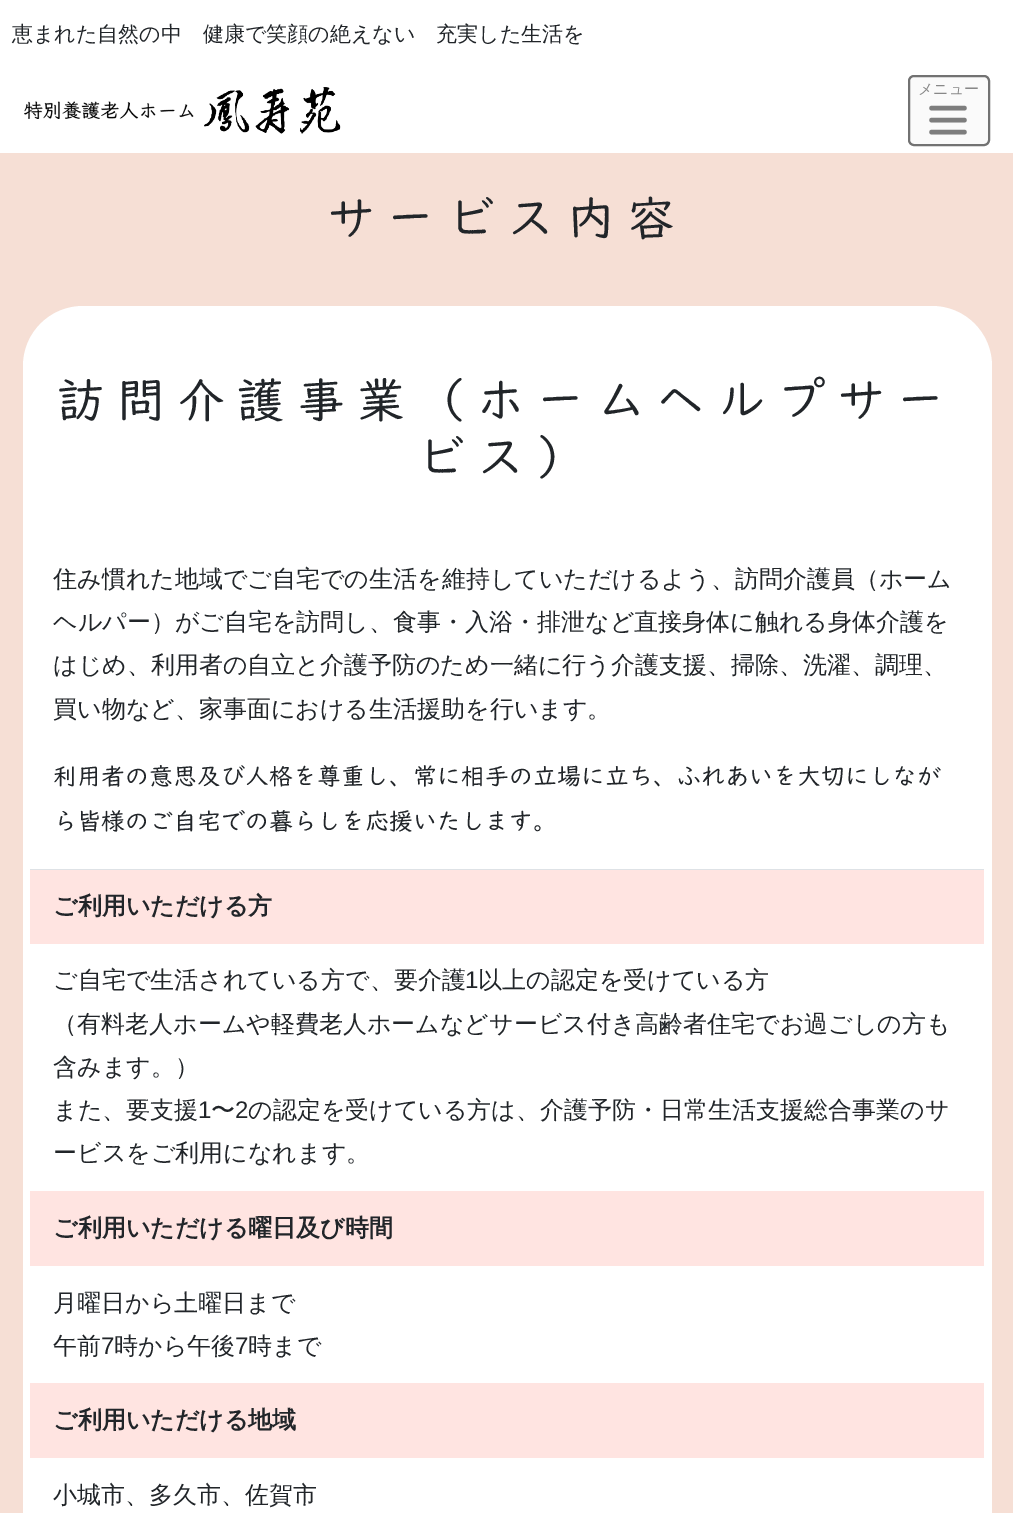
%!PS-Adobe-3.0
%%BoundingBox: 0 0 1013 1513
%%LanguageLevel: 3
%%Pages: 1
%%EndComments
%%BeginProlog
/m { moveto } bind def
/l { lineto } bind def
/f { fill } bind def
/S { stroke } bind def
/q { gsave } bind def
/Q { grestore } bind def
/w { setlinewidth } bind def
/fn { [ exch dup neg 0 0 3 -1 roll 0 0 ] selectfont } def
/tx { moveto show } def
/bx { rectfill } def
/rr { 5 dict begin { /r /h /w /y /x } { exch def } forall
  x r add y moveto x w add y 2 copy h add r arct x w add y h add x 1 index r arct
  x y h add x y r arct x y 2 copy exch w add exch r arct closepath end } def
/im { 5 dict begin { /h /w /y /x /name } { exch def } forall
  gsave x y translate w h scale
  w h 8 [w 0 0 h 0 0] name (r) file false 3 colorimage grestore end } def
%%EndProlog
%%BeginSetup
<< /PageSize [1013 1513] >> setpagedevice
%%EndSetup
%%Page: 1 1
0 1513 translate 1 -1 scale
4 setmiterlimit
1 setgray
0 0 1013 1513 bx
/WenQuanYiZenHei-Medium 21 fn
0.129 0.145 0.161 setrgbcolor
(恵まれた自然の中　健康で笑顔の絶えない　充実した生活を) 12 41 tx
(image0.raw) 24 87 317 47 im
0.98 setgray
909 76 80 69 5 rr q f Q
0.447 setgray
2 w
S
/WenQuanYiZenHei-Medium 15 fn
0.533 setgray
(メニュー) 918 94 tx
0.49 setgray
4.5 w
1 setlinecap
931.5 108 m 964.5 108 l 931.5 120 m 964.5 120 l 931.5 132 m 964.5 132 l S
0.965 0.875 0.835 setrgbcolor
0 153 1013 1360 bx
/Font-Regular 48 fn
0.129 0.145 0.161 setrgbcolor
327 236 m 12 0 (サービス内容) ashow
1 setgray
23 306 969 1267 60 rr f
0.129 0.145 0.161 setrgbcolor
57 418 m 12 0 (訪問介護事業（ホームヘルプサー) ashow
417 475 m 12 0 (ビス）) ashow
/WenQuanYiZenHei-Medium 24 fn
(住み慣れた地域でご自宅での生活を維持していただけるよう、訪問介護員（ホーム) 53 587 tx
(ヘルパー）がご自宅を訪問し、食事・入浴・排泄など直接身体に触れる身体介護を) 53 630 tx
(はじめ、利用者の自立と介護予防のため一緒に行う介護支援、掃除、洗濯、調理、) 53 673 tx
(買い物など、家事面における生活援助を行います。) 53 717 tx
/Font-Regular 24 fn
(利用者の意思及び人格を尊重し、常に相手の立場に立ち、ふれあいを大切にしなが) 53 785 tx
(ら皆様のご自宅での暮らしを応援いたします。) 53 830 tx
0.871 0.886 0.902 setrgbcolor
30 869 954 1 bx
1 0.894 0.882 setrgbcolor
30 870 954 74 bx
/WenQuanYiZenHei-Bold 24 fn
0.129 0.145 0.161 setrgbcolor
(ご利用いただける方) 53 914 tx
1 0.894 0.882 setrgbcolor
30 1191 954 75 bx
/WenQuanYiZenHei-Medium 24 fn
0.129 0.145 0.161 setrgbcolor
(ご自宅で生活されている方で、要介護) 53 988 tx
/LiberationSans-Regular 24 fn
(1) 465 988 tx
/WenQuanYiZenHei-Medium 24 fn
(以上の認定を受けている方) 478 988 tx
(（有料老人ホームや軽費老人ホームなどサービス付き高齢者住宅でお過ごしの方も) 53 1032 tx
(含みます。）) 53 1075 tx
(また、要支援) 53 1118 tx
/LiberationSans-Regular 24 fn
(1) 198 1118 tx
/WenQuanYiZenHei-Medium 24 fn
(〜) 211 1118 tx
/LiberationSans-Regular 24 fn
(2) 235 1118 tx
/WenQuanYiZenHei-Medium 24 fn
(の認定を受けている方は、介護予防・日常生活支援総合事業のサ) 248 1118 tx
(ービスをご利用になれます。) 53 1161 tx
/WenQuanYiZenHei-Bold 24 fn
(ご利用いただける曜日及び時間) 53 1236 tx
1 0.894 0.882 setrgbcolor
30 1383 954 75 bx
/WenQuanYiZenHei-Medium 24 fn
0.129 0.145 0.161 setrgbcolor
(月曜日から土曜日まで) 53 1311 tx
(午前) 53 1354 tx
/LiberationSans-Regular 24 fn
(7) 101 1354 tx
/WenQuanYiZenHei-Medium 24 fn
(時から午後) 114 1354 tx
/LiberationSans-Regular 24 fn
(7) 235 1354 tx
/WenQuanYiZenHei-Medium 24 fn
(時まで) 248 1354 tx
/WenQuanYiZenHei-Bold 24 fn
(ご利用いただける地域) 53 1428 tx
/WenQuanYiZenHei-Medium 24 fn
(小城市、多久市、佐賀市) 53 1503 tx
showpage
%%EOF
